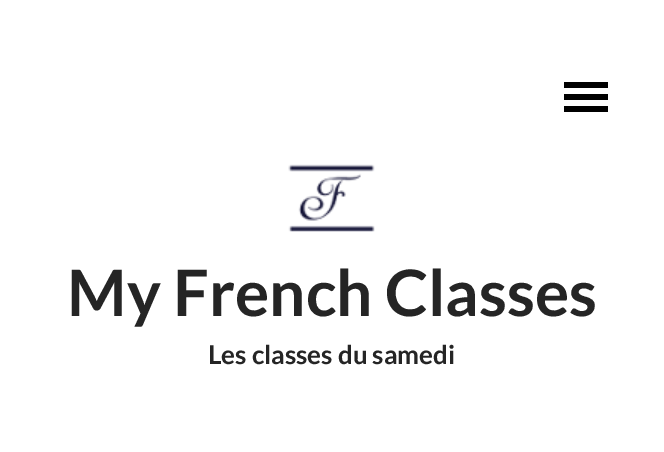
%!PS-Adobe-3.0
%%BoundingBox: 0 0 664 452
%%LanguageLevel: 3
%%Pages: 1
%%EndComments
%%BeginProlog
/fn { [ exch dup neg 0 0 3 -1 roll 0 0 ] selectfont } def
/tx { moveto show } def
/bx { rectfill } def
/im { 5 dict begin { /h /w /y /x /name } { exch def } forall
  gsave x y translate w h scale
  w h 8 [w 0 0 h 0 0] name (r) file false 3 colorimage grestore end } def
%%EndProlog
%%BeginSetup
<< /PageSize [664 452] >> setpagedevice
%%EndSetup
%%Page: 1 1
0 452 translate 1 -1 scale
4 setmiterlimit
1 setgray
0 0 664 452 bx
0 setgray
564 82 44 6 bx
564 94 44 6 bx
564 106 44 6 bx
(image0.raw) 288 164 87 68 im
/Lato-Bold 64 fn
0.145 setgray
(My French Classes) 67 316 tx
/Lato-Bold 26 fn
(Les classes du samedi) 208 364 tx
showpage
%%EOF
